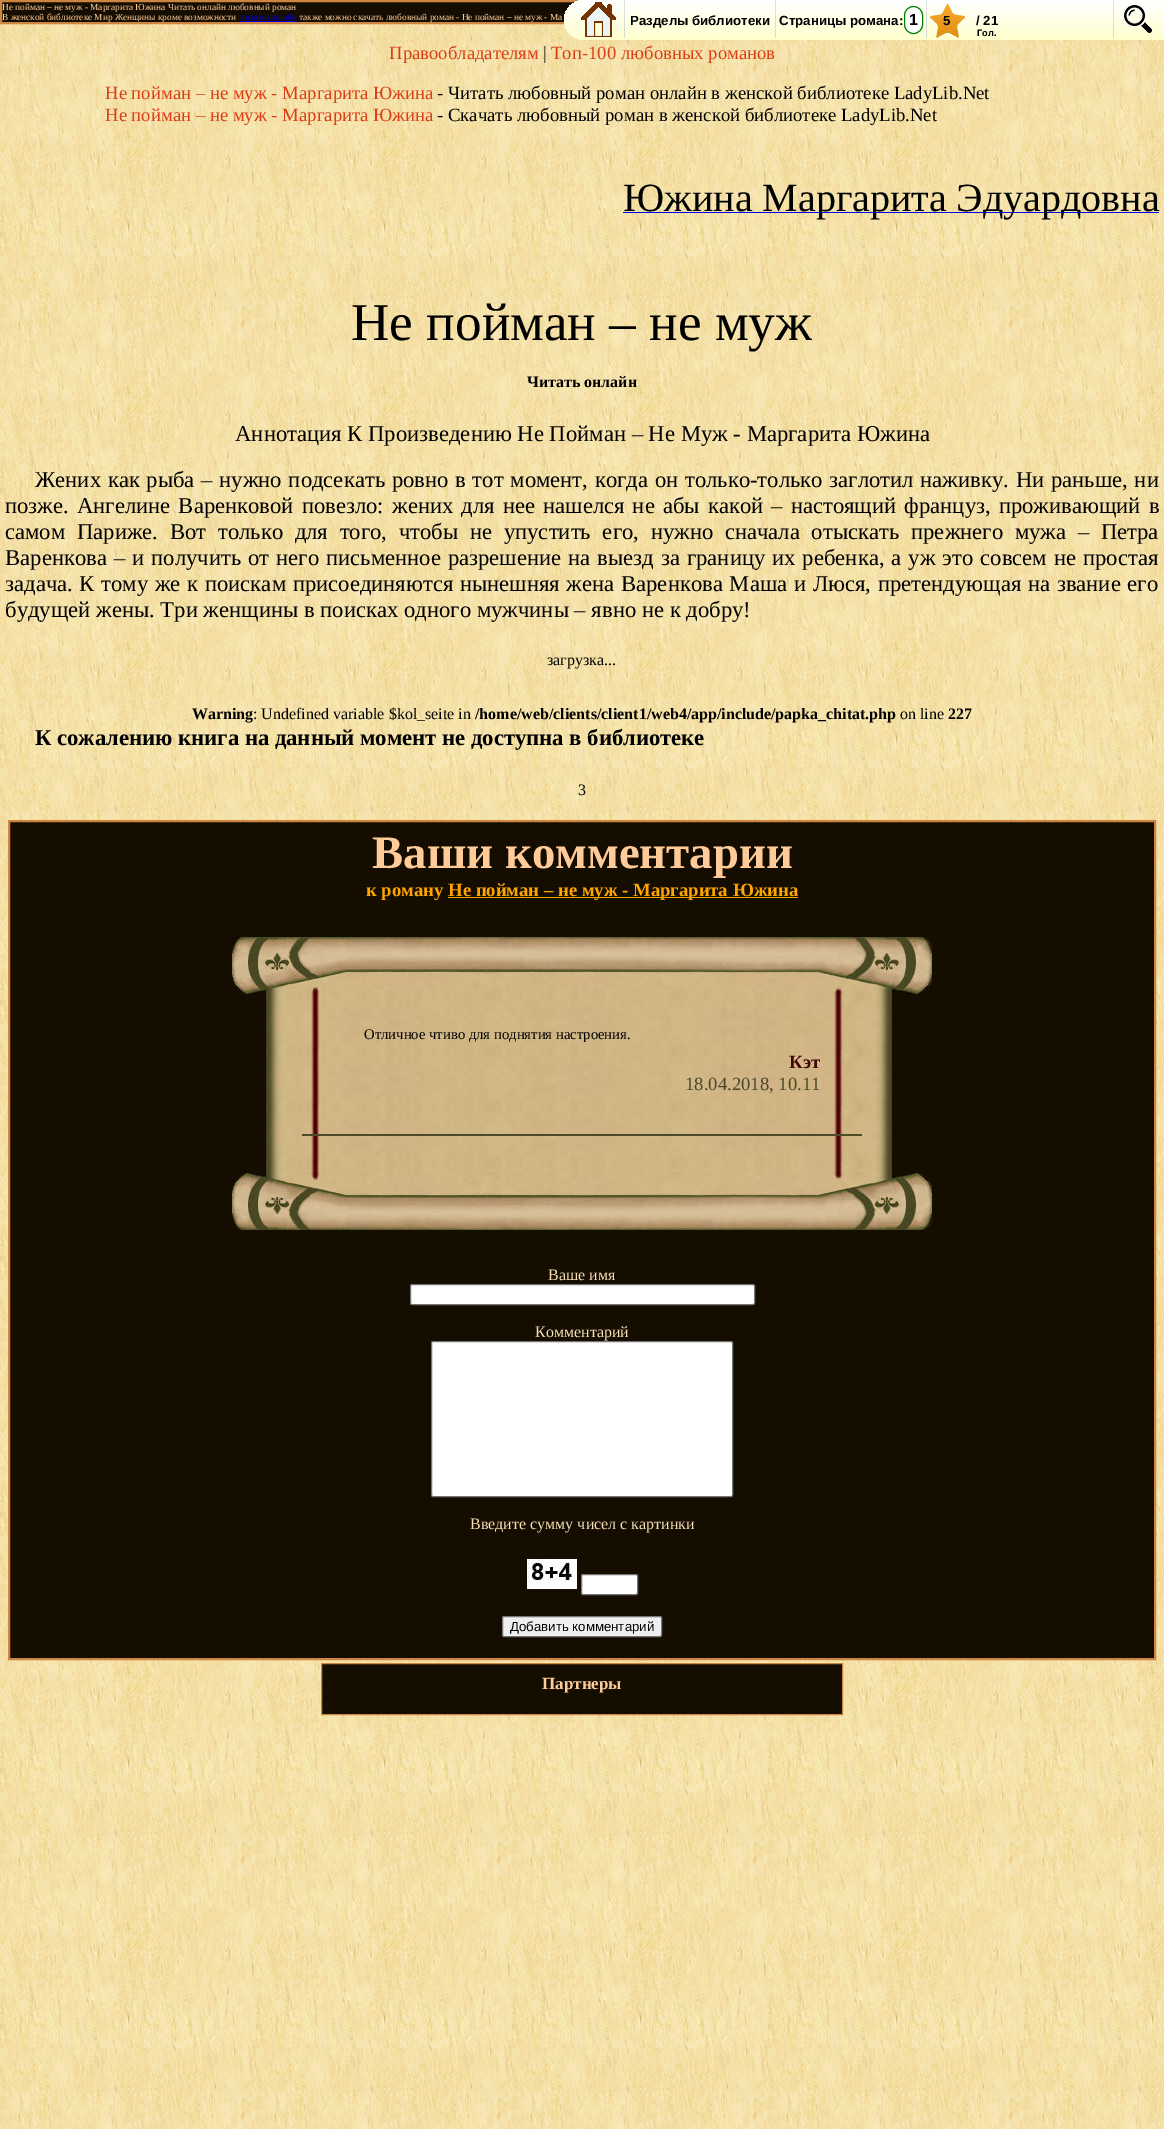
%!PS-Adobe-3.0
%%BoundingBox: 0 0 1164 2129
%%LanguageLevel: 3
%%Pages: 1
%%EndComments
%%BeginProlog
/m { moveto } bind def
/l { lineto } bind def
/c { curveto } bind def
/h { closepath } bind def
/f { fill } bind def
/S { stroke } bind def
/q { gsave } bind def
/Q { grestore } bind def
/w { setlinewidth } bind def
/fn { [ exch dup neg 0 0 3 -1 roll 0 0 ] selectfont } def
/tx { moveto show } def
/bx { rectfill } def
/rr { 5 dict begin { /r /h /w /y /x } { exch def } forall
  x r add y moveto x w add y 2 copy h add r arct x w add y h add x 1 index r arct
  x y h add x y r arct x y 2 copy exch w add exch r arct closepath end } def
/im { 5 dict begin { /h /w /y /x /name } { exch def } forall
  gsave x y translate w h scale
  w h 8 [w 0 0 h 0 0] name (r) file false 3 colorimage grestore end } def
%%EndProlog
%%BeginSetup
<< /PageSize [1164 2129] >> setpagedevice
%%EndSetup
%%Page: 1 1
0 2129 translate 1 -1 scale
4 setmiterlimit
1 setgray
0 0 1164 2129 bx
(image0.raw) 0 24 1164 2105 im
0.082 0.051 0 setrgbcolor
2 2 574 20 bx
0.804 0.522 0.247 setrgbcolor
2 w
1 1 1162 22 rectstroke
/LiberationSerif-Regular 9.3 fn
1 0.8 0.6 setrgbcolor
(Не пойман – не муж - Маргарита Южина Читать онлайн любовный роман) 2 10 tx
(В женской библиотеке Мир Женщины кроме возможности) 2 20 tx
0 0 0.933 setrgbcolor
(читать онлайн) 240 20 tx
240 21 57 1 bx
1 0.8 0.6 setrgbcolor
(также можно скачать любовный роман - Не пойман – не муж - Ма) 299 20 tx
q 584 0 m 1164 0 l 1164 40 l 584 40 l 573 40 564 31 564 20 c 564 9 573 0 584 0 c h clip newpath
<< /ShadingType 2 /ColorSpace /DeviceRGB /Coords [864 0 864 40] /Extend [true true] /Function << /FunctionType 3 /Domain [0 1] /Functions [<< /FunctionType 2 /Domain [0 1] /C0 [1 1 1] /C1 [1 1 1] /N 1 >> << /FunctionType 2 /Domain [0 1] /C0 [1 1 1] /C1 [1 1 0.8] /N 1 >>] /Bounds [0.05] /Encode [0 1 0 1] >> >> shfill Q
(image1.raw) 581 2 35 35 im
(image2.raw) 624 0 1 38 im
/LiberationSans-Bold 13.25 fn
0 setgray
(Разделы библиотеки) 630 25 tx
(image2.raw) 775 0 1 38 im
(Страницы романа:) 779 25 tx
1 setgray
904.5 6.5 18 27 9 rr q f Q
0 0.502 0 setrgbcolor
1 w
S
/LiberationSans-Bold 16 fn
0 setgray
(1) 909 25 tx
(image2.raw) 926 0 1 38 im
(image3.raw) 930 3 35 35 im
/LiberationSans-Bold 13.25 fn
(5) 943 25 tx
(/ 21) 976 25 tx
/LiberationSans-Bold 9.3 fn
(Гол.) 977 36 tx
(image2.raw) 1113 0 1 38 im
(image4.raw) 1124 5 28 28 im
/LiberationSerif-Bold 16 fn
(Читать онлайн) 527 387 tx
/LiberationSerif-Regular 22.67 fn
(Аннотация К Произведению Не Пойман – Не Муж - Маргарита Южина) 235 441 tx
35 487 m 1 0 32 (Жених как рыба – нужно подсекать ровно в тот момент, когда он только-только заглотил наживку. Ни раньше, ни) widthshow
5 513 m 2.4 0 32 (позже. Ангелине Варенковой повезло: жених для нее нашелся не абы какой – настоящий француз, проживающий в) widthshow
5 539 m 6 0 32 (самом Париже. Вот только для того, чтобы не упустить его, нужно сначала отыскать прежнего мужа – Петра) widthshow
5 565 m 1.3 0 32 (Варенкова – и получить от него письменное разрешение на выезд за границу их ребенка, а уж это совсем не простая) widthshow
5 591 m 1 0 32 (задача. К тому же к поискам присоединяются нынешняя жена Варенкова Маша и Люся, претендующая на звание его) widthshow
(будущей жены. Три женщины в поисках одного мужчины – явно не к добру!) 5 617 tx
/LiberationSerif-Regular 16 fn
(загрузка...) 547 665 tx
/LiberationSerif-Bold 16 fn
(Warning) 192 719 tx
/LiberationSerif-Regular 16 fn
(: Undefined variable $kol_seite in) 253 719 tx
/LiberationSerif-Bold 16 fn
(/home/web/clients/client1/web4/app/include/papka_chitat.php) 475 719 tx
/LiberationSerif-Regular 16 fn
(on line) 900 719 tx
/LiberationSerif-Bold 16 fn
(227) 948 719 tx
/LiberationSerif-Bold 22.67 fn
(К сожалению книга на данный момент не доступна в библиотеке) 35 745 tx
/LiberationSerif-Regular 16 fn
(3) 578 795 tx
0.082 0.051 0 setrgbcolor
9 821 m 1155 821 l 1155 1659 l 9 1659 l h q f Q
0.804 0.522 0.247 setrgbcolor
2 w
S
/LiberationSerif-Bold 46.75 fn
1 0.8 0.6 setrgbcolor
(Ваши комментарии) 372 868 tx
/LiberationSerif-Bold 18.7 fn
1 0.647 0 setrgbcolor
(к роману) 366 896 tx
448 897 350 1 bx
(Не пойман – не муж - Маргарита Южина) 448 896 tx
(image5.raw) 232 937 700 58 im
(image6.raw) 266 995 628 177 im
/LiberationSerif-Regular 14.7 fn
0 setgray
(Отличное чтиво для поднятия настроения.) 364 1039 tx
/LiberationSerif-Bold 18.7 fn
0.255 0.027 0.02 setrgbcolor
(Кэт) 789 1068 tx
/LiberationSerif-Regular 18.7 fn
0.286 0.286 0.153 setrgbcolor
(18.04.2018, 10.11) 685 1090 tx
0.302 0.29 0.153 setrgbcolor
302 1134 560 2 bx
(image7.raw) 232 1172 700 58 im
/LiberationSerif-Regular 16 fn
0.961 0.871 0.702 setrgbcolor
(Ваше имя) 548 1280 tx
1 setgray
410.5 1284.5 344 20 1.5 rr q f Q
0.463 setgray
1 w
S
0.961 0.871 0.702 setrgbcolor
(Комментарий) 535 1337 tx
1 setgray
431.5 1341.5 301 155 1.5 rr q f Q
0.463 setgray
S
0.961 0.871 0.702 setrgbcolor
(Введите сумму чисел с картинки) 470 1529 tx
(image8.raw) 527 1559 50 30 im
1 setgray
581.5 1574.5 56 20 1.5 rr q f Q
0.463 setgray
S
0.937 setgray
502.5 1616.5 159 20 1.5 rr q f Q
0.463 setgray
S
/LiberationSans-Regular 13.25 fn
0 setgray
(Добавить комментарий) 510 1631 tx
0.082 0.051 0 setrgbcolor
321.5 1663.5 m 842.5 1663.5 l 842.5 1714.5 l 321.5 1714.5 l h q f Q
0.804 0.522 0.247 setrgbcolor
S
/LiberationSerif-Bold 17 fn
1 0.8 0.6 setrgbcolor
(Партнеры) 542 1689 tx
/LiberationSerif-Regular 18.7 fn
0.859 0.239 0.094 setrgbcolor
(Правообладателям) 389 59 tx
0 setgray
(|) 543 59 tx
0.859 0.239 0.094 setrgbcolor
(Топ-100 любовных романов) 551 59 tx
(Не пойман – не муж - Маргарита Южина) 105 99 tx
0 setgray
(- Читать любовный роман онлайн в женской библиотеке LadyLib.Net) 437 99 tx
0.859 0.239 0.094 setrgbcolor
(Не пойман – не муж - Маргарита Южина) 105 121 tx
0 setgray
(- Скачать любовный роман в женской библиотеке LadyLib.Net) 437 121 tx
0 0 0.933 setrgbcolor
623 212 536 1 bx
/LiberationSerif-Regular 40 fn
0 setgray
(Южина Маргарита Эдуардовна) 623 211 tx
/LiberationSerif-Regular 53.25 fn
(Не пойман – не муж) 351 340 tx
showpage
%%EOF
